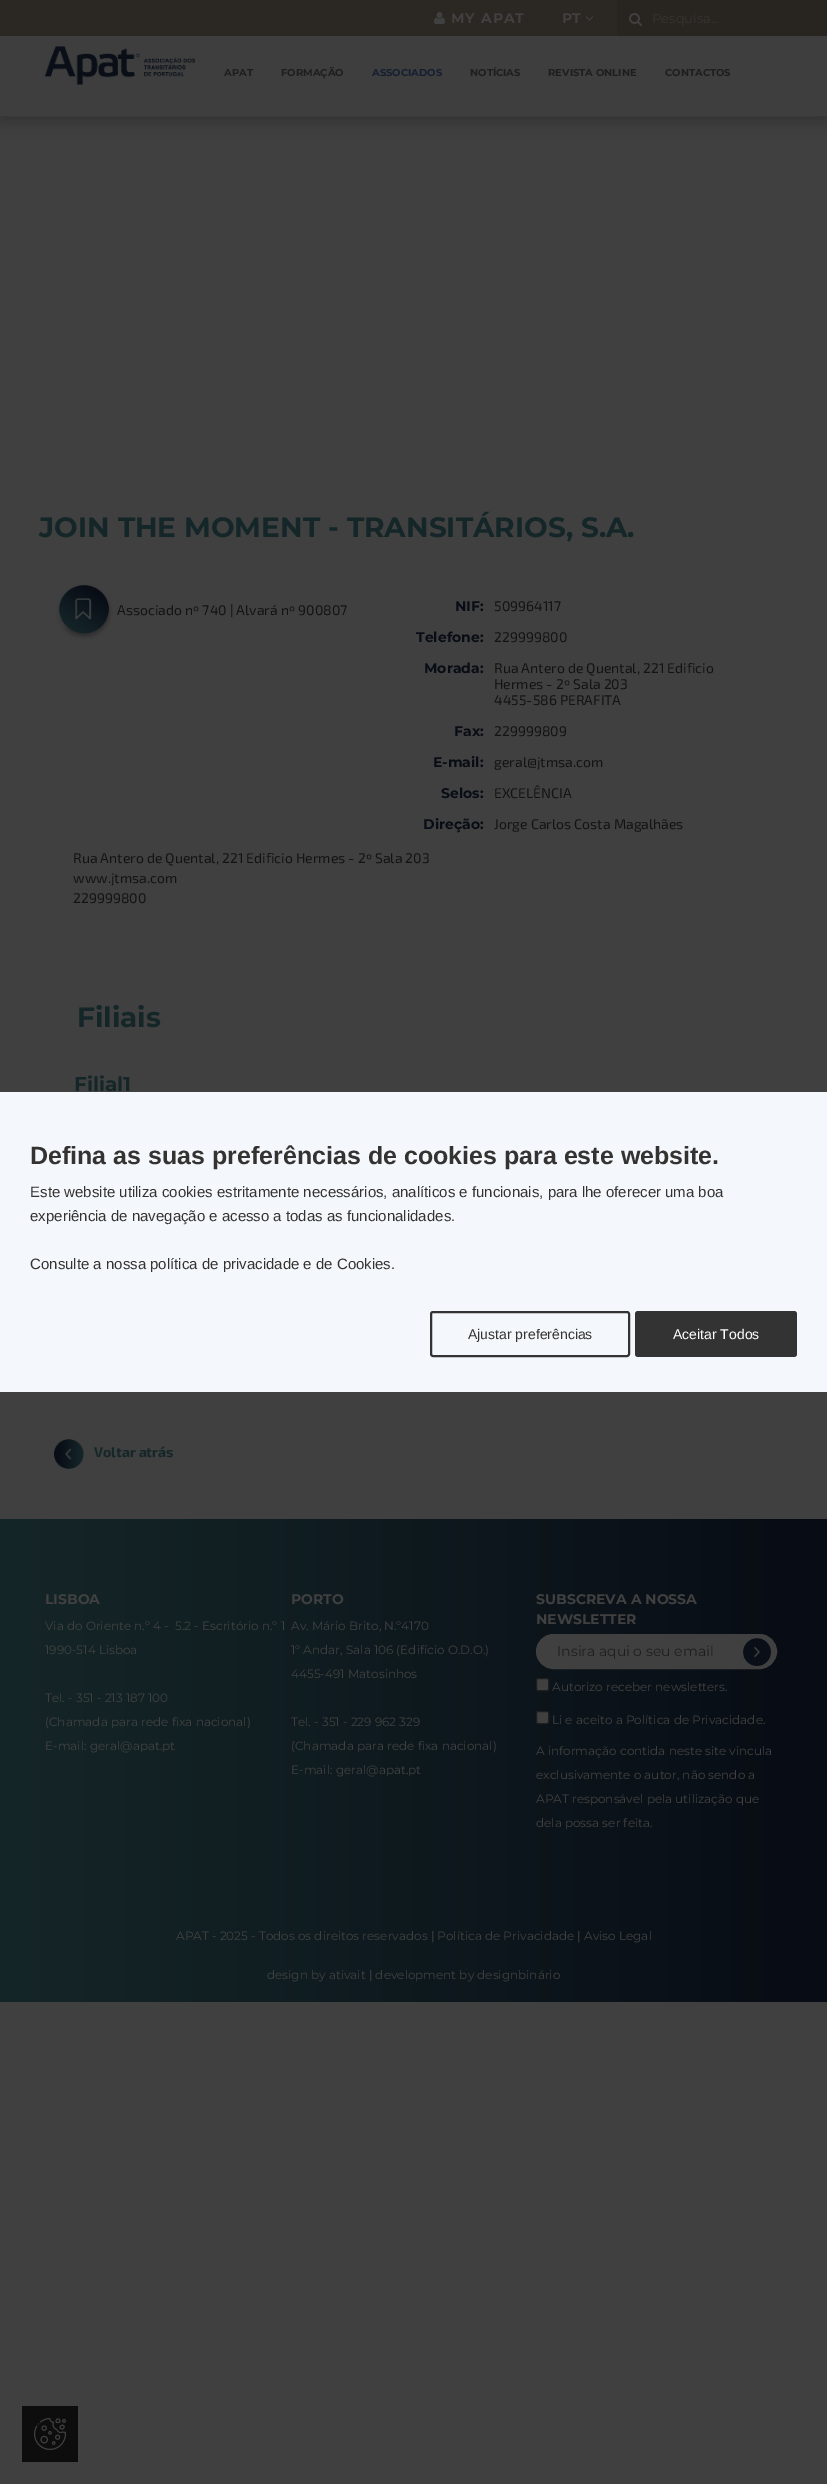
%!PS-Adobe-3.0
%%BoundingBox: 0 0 827 2484
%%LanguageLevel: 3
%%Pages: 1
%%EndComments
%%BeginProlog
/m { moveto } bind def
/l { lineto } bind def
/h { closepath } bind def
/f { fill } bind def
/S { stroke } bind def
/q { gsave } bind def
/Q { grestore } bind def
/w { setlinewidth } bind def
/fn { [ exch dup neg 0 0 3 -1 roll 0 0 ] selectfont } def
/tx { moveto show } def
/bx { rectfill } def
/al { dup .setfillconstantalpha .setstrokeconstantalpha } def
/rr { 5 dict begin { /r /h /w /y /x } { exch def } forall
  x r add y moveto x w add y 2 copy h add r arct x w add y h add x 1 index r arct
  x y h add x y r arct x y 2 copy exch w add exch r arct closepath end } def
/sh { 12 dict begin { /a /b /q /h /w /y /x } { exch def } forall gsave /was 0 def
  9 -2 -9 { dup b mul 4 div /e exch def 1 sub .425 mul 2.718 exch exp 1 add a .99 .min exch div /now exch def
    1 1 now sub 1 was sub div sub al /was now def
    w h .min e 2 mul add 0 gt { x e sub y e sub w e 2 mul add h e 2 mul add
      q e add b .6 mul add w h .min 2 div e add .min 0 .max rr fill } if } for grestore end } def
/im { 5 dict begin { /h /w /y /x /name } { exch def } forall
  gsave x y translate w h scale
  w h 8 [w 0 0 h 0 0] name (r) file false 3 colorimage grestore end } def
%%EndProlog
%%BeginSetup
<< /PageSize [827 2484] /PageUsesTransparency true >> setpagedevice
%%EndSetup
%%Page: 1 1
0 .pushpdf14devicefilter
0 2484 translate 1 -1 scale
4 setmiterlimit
0.251 setgray
0 0 827 2484 bx
0.11 setgray
0 5 827 117 0 10 0.4 sh
0.243 setgray
0 36 827 80 bx
0.227 setgray
10 116 807 1 bx
0.169 0.153 0.133 setrgbcolor
0 0 617 36 bx
(image0.raw) 434 12 11 12 im
/Montserrat-Bold 14 fn
0.251 setgray
451 23 m 1 0 (MY APAT) ashow
(PT) 562 23 tx
(image1.raw) 585 16 9 5 im
0.157 0.141 0.122 setrgbcolor
617 0 210 36 bx
(image2.raw) 629 13 13 13 im
/Montserrat-Regular 13 fn
0.208 0.2 0.192 setrgbcolor
(Pesquisa...) 652 23 tx
(image3.raw) 45 46 150 39 im
/Montserrat-Bold 10 fn
0.118 setgray
(APAT) 224 76 tx
(FORMAÇÃO) 281 76 tx
0.082 0.122 0.188 setrgbcolor
(ASSOCIADOS) 372 76 tx
0.118 setgray
(NOTÍCIAS) 470 76 tx
(REVISTA ONLINE) 548 76 tx
(CONTACTOS) 665 76 tx
/Montserrat-Bold 28 fn
0.082 0.149 0.157 setrgbcolor
(JOIN THE MOMENT - TRANSITÁRIOS, S.A.) 39 537 tx
(image4.raw) 56 584 57 56 im
/Exo2-Regular 14 fn
0.075 setgray
(Associado nº 740 | Alvará nº 900807) 117 615 tx
/Montserrat-Bold 14 fn
0.031 0.047 0.078 setrgbcolor
(NIF:) 455 611 tx
/Exo2-Regular 14 fn
0.075 setgray
(509964117) 494 611 tx
/Montserrat-Bold 14 fn
0.031 0.047 0.078 setrgbcolor
(Telefone:) 416 642 tx
/Exo2-Regular 14 fn
0.075 setgray
(229999800) 494 642 tx
/Montserrat-Bold 14 fn
0.031 0.047 0.078 setrgbcolor
(Morada:) 424 673 tx
/Exo2-Regular 14 fn
0.075 setgray
(Rua Antero de Quental, 221 Edificio) 494 673 tx
(Hermes - 2º Sala 203) 494 689 tx
(4455-586 PERAFITA) 494 705 tx
/Montserrat-Bold 14 fn
0.031 0.047 0.078 setrgbcolor
(Fax:) 454 736 tx
/Exo2-Regular 14 fn
0.075 setgray
(229999809) 494 736 tx
/Montserrat-Bold 14 fn
0.031 0.047 0.078 setrgbcolor
(E-mail:) 433 767 tx
/Exo2-Regular 14 fn
0.075 setgray
(geral@jtmsa.com) 494 767 tx
/Montserrat-Bold 14 fn
0.031 0.047 0.078 setrgbcolor
(Selos:) 441 798 tx
/Exo2-Regular 14 fn
0.075 setgray
(EXCELÊNCIA) 494 798 tx
/Montserrat-Bold 14 fn
0.031 0.047 0.078 setrgbcolor
(Direção:) 423 829 tx
/Exo2-Regular 14 fn
0.075 setgray
(Jorge Carlos Costa Magalhães) 494 829 tx
(Rua Antero de Quental, 221 Edificio Hermes - 2º Sala 203) 73 863 tx
(www.jtmsa.com) 73 883 tx
(229999800) 73 903 tx
/Montserrat-Bold 28 fn
0.082 0.149 0.157 setrgbcolor
(Filiais) 77 1027 tx
/Montserrat-Bold 20 fn
(Filial1) 74 1091 tx
(image5.raw) 54 1439 30 30 im
/Exo2-Bold 14 fn
(Voltar atrás) 94 1457 tx
0.957 0.969 0.988 setrgbcolor
0 1092 827 300 bx
/LiberationSans-Bold 25 fn
0.208 0.2 0.192 setrgbcolor
(Defina as suas preferências de cookies para este website.) 30 1164 tx
/LiberationSans-Regular 15 fn
(Este website utiliza cookies estritamente necessários, analíticos e funcionais, para lhe oferecer uma boa) 30 1197 tx
(experiência de navegação e acesso a todas as funcionalidades.) 30 1221 tx
(Consulte a nossa política de privacidade e de Cookies.) 30 1269 tx
0.2 setgray
2 w
431 1312 198 44 2 rr S
/LiberationSans-Regular 14 fn
0.208 0.2 0.192 setrgbcolor
(Ajustar preferências) 468 1339 tx
0.2 setgray
635 1311 162 46 3 rr f
1 setgray
(Aceitar Todos) 673 1339 tx
0.051 setgray
22 2406 56 56 bx
(image6.raw) 34 2418 32 32 im
q 0 1519 m 827 1519 l 827 2002 l 0 2002 l h clip newpath
<< /ShadingType 2 /ColorSpace /DeviceRGB /Coords [827 1761 0 1761] /Extend [true true] /Function << /FunctionType 2 /Domain [0 1] /C0 [0.031 0.047 0.078] /C1 [0.082 0.149 0.157] /N 1 >> >> shfill Q
/Montserrat-Bold 14 fn
0.251 setgray
(LISBOA) 45 1604 tx
/Montserrat-Regular 12 fn
(Via do Oriente n.º 4 -  5.2 - Escritório n.º 1) 45 1630 tx
(1990-514 Lisboa) 45 1654 tx
(Tel. - 351 - 213 187 100) 45 1702 tx
(\(Chamada para rede fixa nacional\)) 45 1726 tx
(E-mail: geral@apat.pt) 45 1750 tx
/Montserrat-Bold 14 fn
(PORTO) 291 1604 tx
/Montserrat-Regular 12 fn
(Av. Mário Brito, N.º4170) 291 1630 tx
(1º Andar, Sala 106 \(Edifício O.D.O.\)) 291 1654 tx
(4455-491 Matosinhos) 291 1678 tx
(Tel. - 351 - 229 962 329) 291 1726 tx
(\(Chamada para rede fixa nacional\)) 291 1750 tx
(E-mail: geral@apat.pt) 291 1774 tx
/Montserrat-Bold 14 fn
(SUBSCREVA A NOSSA) 536 1604 tx
(NEWSLETTER) 536 1624 tx
536.5 1634.5 240 34 17 rr q f Q
1 w
S
/Montserrat-Regular 14 fn
0.118 setgray
(Insira aqui o seu email) 557 1656 tx
(image7.raw) 743 1638 28 28 im
0.251 setgray
536.5 1678.5 12 12 1.5 rr q f Q
0.118 setgray
S
/Montserrat-Regular 12 fn
0.251 setgray
(Autorizo receber newsletters.) 552 1691 tx
536.5 1711.5 12 12 1.5 rr q f Q
0.118 setgray
S
0.251 setgray
(Li e aceito a Política de Privacidade.) 552 1724 tx
(A informação contida neste site vincula) 536 1755 tx
(exclusivamente o autor, não sendo a) 536 1779 tx
(APAT responsável pela utilização que) 536 1803 tx
(dela possa ser feita.) 536 1827 tx
(APAT - 2025 - Todos os direitos reservados | Política de Privacidade | Aviso Legal) 176 1940 tx
(design by ativait | development by designbinário) 267 1979 tx
.poppdf14devicefilter showpage
%%EOF
